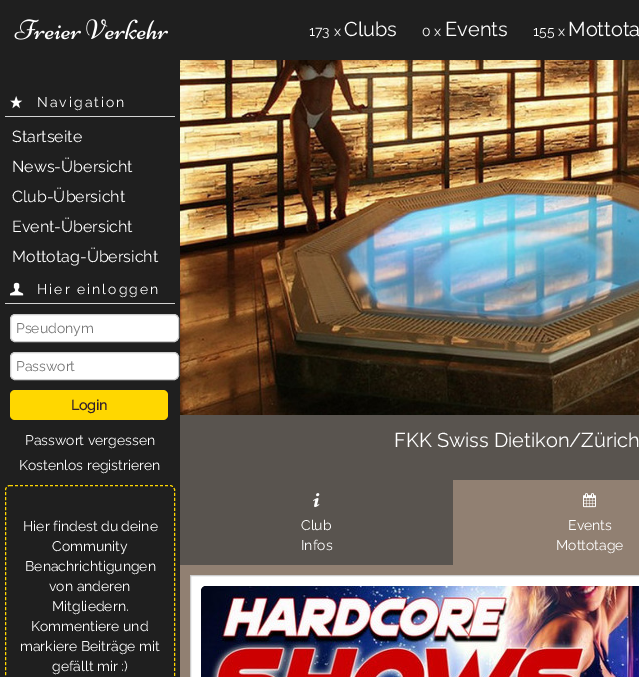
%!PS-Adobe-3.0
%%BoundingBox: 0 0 639 677
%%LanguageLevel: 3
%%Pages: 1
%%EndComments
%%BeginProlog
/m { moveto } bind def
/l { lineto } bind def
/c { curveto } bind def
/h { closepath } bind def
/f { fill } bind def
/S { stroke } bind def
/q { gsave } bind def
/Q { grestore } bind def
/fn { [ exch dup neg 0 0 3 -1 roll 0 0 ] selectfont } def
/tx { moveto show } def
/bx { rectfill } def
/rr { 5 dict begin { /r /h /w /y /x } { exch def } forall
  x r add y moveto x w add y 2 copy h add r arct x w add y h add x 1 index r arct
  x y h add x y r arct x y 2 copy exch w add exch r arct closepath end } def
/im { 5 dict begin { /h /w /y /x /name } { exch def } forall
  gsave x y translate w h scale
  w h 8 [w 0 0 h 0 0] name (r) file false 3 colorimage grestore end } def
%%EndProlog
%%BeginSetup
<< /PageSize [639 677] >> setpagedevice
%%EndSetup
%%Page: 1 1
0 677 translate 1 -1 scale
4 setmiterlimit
0.122 setgray
0 0 639 677 bx
(image0.raw) 14 19 154 21 im
/Raleway-Thin 14 fn
1 setgray
(173 x) 309 36 tx
/Raleway-Thin 20 fn
(Clubs) 344 36 tx
/Raleway-Thin 14 fn
(0 x) 422 36 tx
/Raleway-Thin 20 fn
(Events) 445 36 tx
/Raleway-Thin 14 fn
(155 x) 533 36 tx
/Raleway-Thin 20 fn
(Mottota) 568 36 tx
0.827 setgray
5 116 170 1 bx
(image1.raw) 10 96 13 13 im
/Raleway-Thin 14 fn
1 setgray
37 107 m 2 0 (Navigation) ashow
/Raleway-Thin 16 fn
(Startseite) 12 142 tx
(News-Übersicht) 12 172 tx
(Club-Übersicht) 12 202 tx
(Event-Übersicht) 12 232 tx
(Mottotag-Übersicht) 12 262 tx
0.827 setgray
5 303 170 1 bx
(image2.raw) 10 282 14 14 im
/Raleway-Thin 14 fn
1 setgray
37 294 m 2 0 (Hier einloggen) ashow
10.5 314.5 168 27 4.5 rr q f Q
0.8 setgray
S
0.459 setgray
(Pseudonym) 16 333 tx
1 setgray
10.5 352.5 168 27 4.5 rr q f Q
0.8 setgray
S
0.459 setgray
(Passwort) 16 371 tx
1 0.843 0 setrgbcolor
10 390 158 30 5 rr f
/Raleway-Bold 14 fn
0.2 0.129 0.176 setrgbcolor
(Login) 71 410 tx
/Raleway-Thin 14 fn
1 setgray
(Passwort vergessen) 25 445 tx
(Kostenlos registrieren) 19 470 tx
1 0.843 0 setrgbcolor
[3 2] 0 setdash
10 485.5 m 170 485.5 l 172.5 485.5 174.5 487.5 174.5 490 c 174.5 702 l 174.5 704.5 172.5 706.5 170 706.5 c 10 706.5 l 7.5 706.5 5.5 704.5 5.5 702 c 5.5 490 l 5.5 487.5 7.5 485.5 10 485.5 c h S
1 setgray
(Hier findest du deine) 23 531 tx
(Community) 52 551 tx
(Benachrichtigungen) 25 571 tx
(von anderen) 49 591 tx
(Mitgliedern.) 52 611 tx
(Kommentiere und) 31 631 tx
(markiere Beiträge mit) 20 651 tx
(gefällt mir :\)) 52 671 tx
0.569 0.502 0.447 setrgbcolor
180 565 459 112 bx
(image3.raw) 180 60 459 355 im
0.349 0.329 0.31 setrgbcolor
180 415 459 65 bx
/Raleway-Thin 20 fn
1 setgray
(FKK Swiss Dietikon/Zürich) 394 447 tx
0.349 0.329 0.31 setrgbcolor
180 480 273 85 bx
(image4.raw) 313 493 7 15 im
/Raleway-Thin 14 fn
1 setgray
(Club) 301 530 tx
(Infos) 301 550 tx
0.569 0.502 0.447 setrgbcolor
453 480 186 85 bx
(image5.raw) 583 493 13 15 im
1 setgray
(Events) 568 530 tx
(Mottotage) 556 550 tx
190.5 575.5 m 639.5 575.5 l 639.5 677.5 l 190.5 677.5 l h q f Q
0.8 setgray
[] 0 setdash
S
(image6.raw) 201 586 438 91 im
showpage
%%EOF
